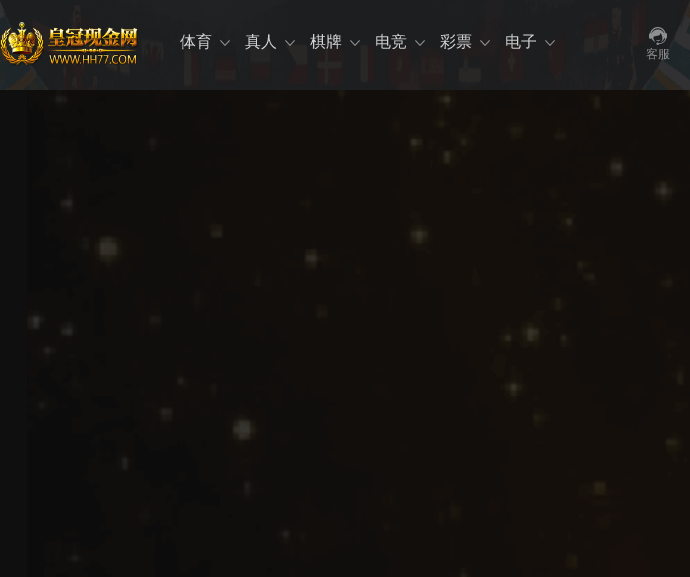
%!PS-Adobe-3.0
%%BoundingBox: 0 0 690 577
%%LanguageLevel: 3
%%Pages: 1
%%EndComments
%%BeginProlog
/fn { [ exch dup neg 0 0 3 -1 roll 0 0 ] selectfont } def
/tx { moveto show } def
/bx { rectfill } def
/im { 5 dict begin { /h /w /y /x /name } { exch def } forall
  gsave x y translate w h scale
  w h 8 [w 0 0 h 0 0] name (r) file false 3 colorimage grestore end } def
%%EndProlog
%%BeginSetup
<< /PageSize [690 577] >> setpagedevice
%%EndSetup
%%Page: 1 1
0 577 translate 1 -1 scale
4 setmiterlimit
0.059 setgray
0 0 690 577 bx
0.106 setgray
0 0 690 90 bx
(image0.raw) 0 0 690 90 im
(image1.raw) 0 22 138 44 im
/WenQuanYiZenHei-Medium 16 fn
0.824 0.824 0.827 setrgbcolor
(体育) 180 47 tx
(image2.raw) 220 40 10 6 im
(真人) 245 47 tx
(image3.raw) 285 40 10 6 im
(棋牌) 310 47 tx
(image4.raw) 350 40 10 6 im
(电竞) 375 47 tx
(image5.raw) 415 40 10 6 im
(彩票) 440 47 tx
(image6.raw) 480 40 10 6 im
(电子) 505 47 tx
(image7.raw) 545 40 10 6 im
(image8.raw) 649 27 18 18 im
/WenQuanYiZenHei-Medium 12 fn
0.557 0.565 0.569 setrgbcolor
(客服) 646 58 tx
(image9.raw) 27 90 663 487 im
showpage
%%EOF
